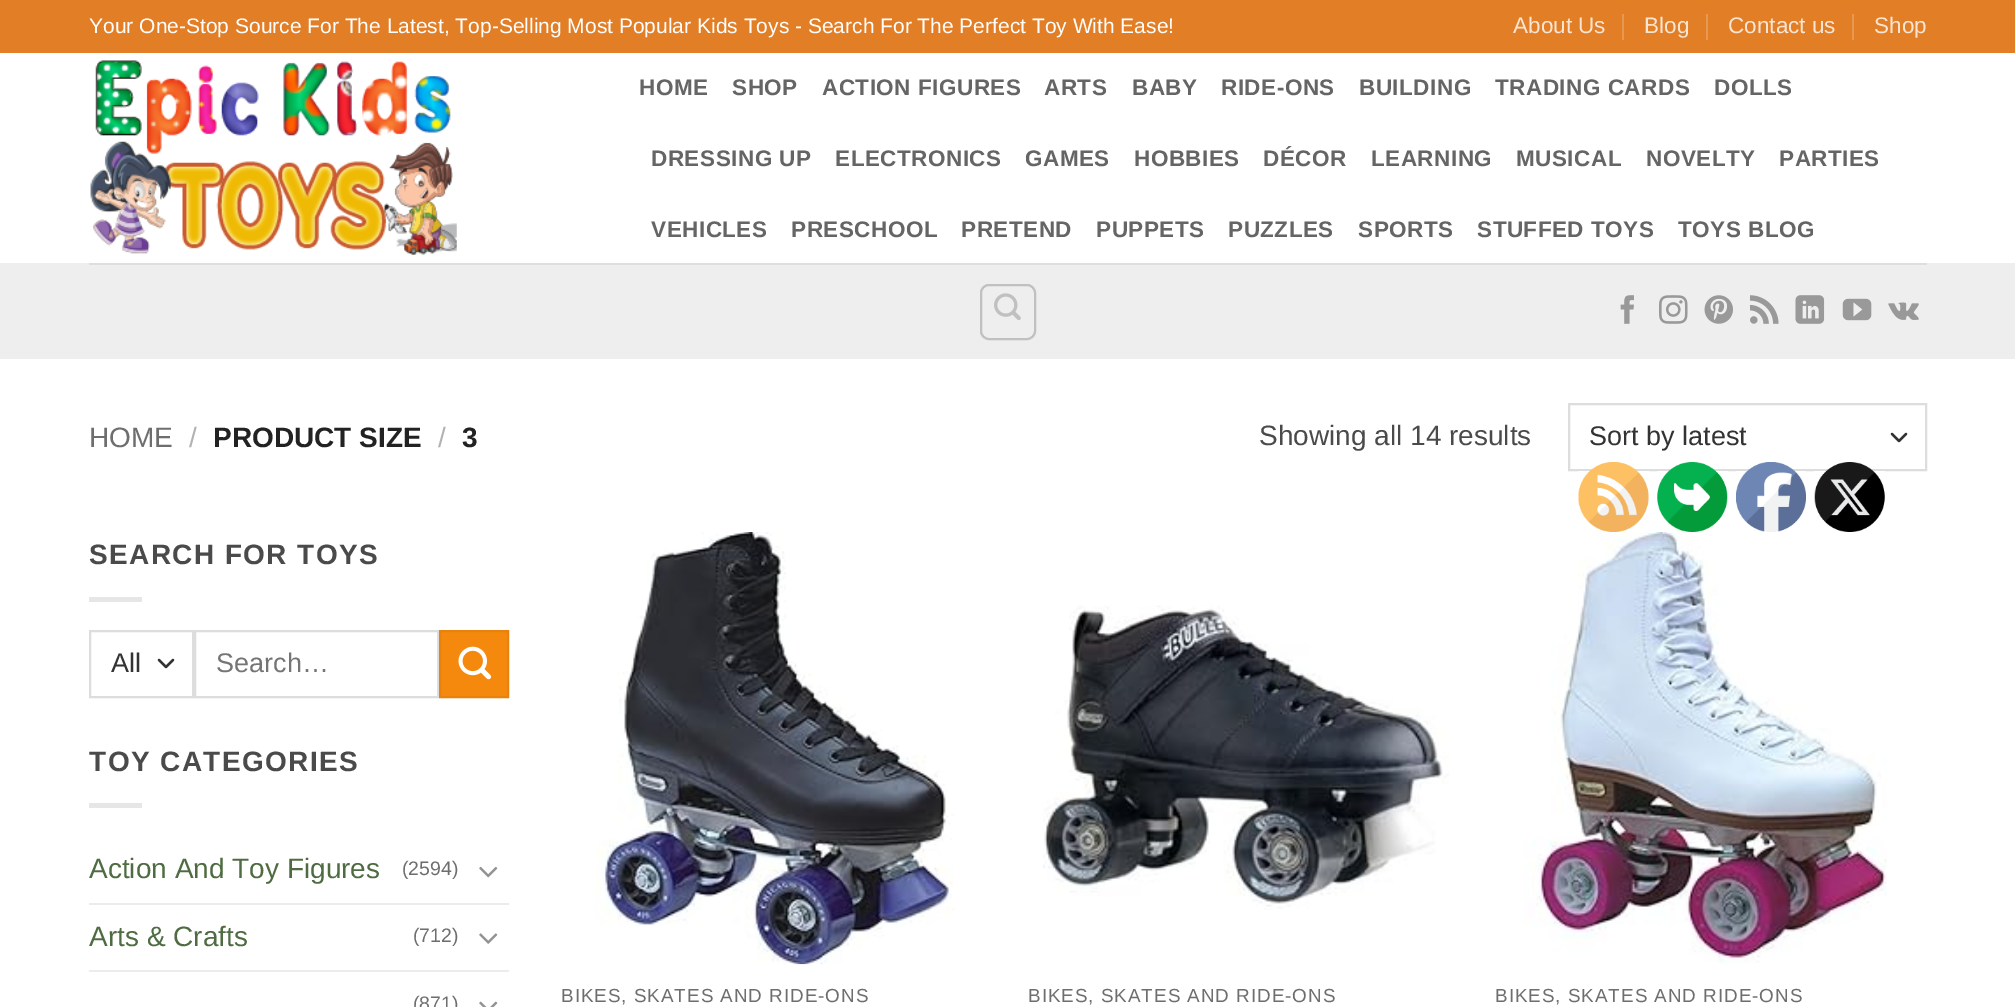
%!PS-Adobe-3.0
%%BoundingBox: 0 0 2015 1007
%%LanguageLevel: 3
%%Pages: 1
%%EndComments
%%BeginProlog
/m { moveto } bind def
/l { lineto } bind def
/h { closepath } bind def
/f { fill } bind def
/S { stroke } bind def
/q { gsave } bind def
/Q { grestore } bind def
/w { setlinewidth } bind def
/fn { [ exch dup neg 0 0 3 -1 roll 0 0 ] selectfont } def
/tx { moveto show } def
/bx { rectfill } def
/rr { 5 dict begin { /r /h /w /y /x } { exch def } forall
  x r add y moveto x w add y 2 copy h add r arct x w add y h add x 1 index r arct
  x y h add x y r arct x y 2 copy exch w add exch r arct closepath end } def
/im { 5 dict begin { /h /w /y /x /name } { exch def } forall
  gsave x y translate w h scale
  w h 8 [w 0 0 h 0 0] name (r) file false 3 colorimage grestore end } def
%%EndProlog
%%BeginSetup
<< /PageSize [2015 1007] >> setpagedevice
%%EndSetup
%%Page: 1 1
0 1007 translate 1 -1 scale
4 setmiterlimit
1 setgray
0 0 2015 1007 bx
0.886 0.494 0.149 setrgbcolor
0 0 2015 53 bx
/LiberationSans-Regular 21 fn
1 setgray
(Your One-Stop Source For The Latest, Top-Selling Most Popular Kids Toys - Search For The Perfect Toy With Ease!) 89 33 tx
/LiberationSans-Regular 22.5 fn
0.976 0.898 0.831 setrgbcolor
(About Us) 1513 33 tx
0.91 0.596 0.318 setrgbcolor
1622 14 2 26 bx
0.976 0.898 0.831 setrgbcolor
(Blog) 1644 33 tx
0.91 0.596 0.318 setrgbcolor
1706 14 2 26 bx
0.976 0.898 0.831 setrgbcolor
(Contact us) 1728 33 tx
0.91 0.596 0.318 setrgbcolor
1852 14 2 26 bx
0.976 0.898 0.831 setrgbcolor
(Shop) 1874 33 tx
(image0.raw) 90 60 367 195 im
/LiberationSans-Bold 22.5 fn
0.396 setgray
639 95 m 0.5 0 (HOME) ashow
732 95 m 0.5 0 (SHOP) ashow
822 95 m 0.5 0 (ACTION FIGURES) ashow
1044 95 m 0.5 0 (ARTS) ashow
1132 95 m 0.5 0 (BABY) ashow
1221 95 m 0.5 0 (RIDE-ONS) ashow
1359 95 m 0.5 0 (BUILDING) ashow
1495 95 m 0.5 0 (TRADING CARDS) ashow
1714 95 m 0.5 0 (DOLLS) ashow
651 166 m 0.5 0 (DRESSING UP) ashow
835 166 m 0.5 0 (ELECTRONICS) ashow
1025 166 m 0.5 0 (GAMES) ashow
1134 166 m 0.5 0 (HOBBIES) ashow
1263 166 m 0.5 0 (DÉCOR) ashow
1371 166 m 0.5 0 (LEARNING) ashow
1516 166 m 0.5 0 (MUSICAL) ashow
1646 166 m 0.5 0 (NOVELTY) ashow
1779 166 m 0.5 0 (PARTIES) ashow
651 237 m 0.5 0 (VEHICLES) ashow
791 237 m 0.5 0 (PRESCHOOL) ashow
961 237 m 0.5 0 (PRETEND) ashow
1096 237 m 0.5 0 (PUPPETS) ashow
1228 237 m 0.5 0 (PUZZLES) ashow
1358 237 m 0.5 0 (SPORTS) ashow
1477 237 m 0.5 0 (STUFFED TOYS) ashow
1678 237 m 0.5 0 (TOYS BLOG) ashow
0.933 setgray
0 263 2015 96 bx
0.871 setgray
89 263 1838 2 bx
0.753 setgray
2 w
981 285 54 54 8 rr S
(image1.raw) 994 293 27 28 im
(image2.raw) 1620 295 14 29 im
(image3.raw) 1659 295 29 29 im
(image4.raw) 1704 295 29 29 im
(image5.raw) 1750 295 29 29 im
(image6.raw) 1795 295 30 29 im
(image7.raw) 1842 298 30 23 im
(image8.raw) 1888 302 31 18 im
/LiberationSans-Regular 28 fn
0.431 setgray
(HOME) 89 447 tx
0.698 setgray
(/) 189 447 tx
/LiberationSans-Bold 28 fn
0.133 setgray
(PRODUCT SIZE) 213 447 tx
/LiberationSans-Regular 28 fn
0.698 setgray
(/) 438 447 tx
/LiberationSans-Bold 28 fn
0.133 setgray
(3) 462 447 tx
/LiberationSans-Regular 28 fn
0.29 setgray
(Showing all 14 results) 1259 445 tx
0.2 setgray
2.3 w
1 setlinecap
1 setlinejoin
1892 434 m 1899 441 l 1906 434 l S
0.867 setgray
2 w
0 setlinecap
0 setlinejoin
1569 404 357 66 rectstroke
/LiberationSans-Regular 27 fn
0.2 setgray
(Sort by latest) 1589 445 tx
/LiberationSans-Bold 28 fn
0.29 setgray
89 564 m 1.4 0 (SEARCH FOR TOYS) ashow
0.902 setgray
89 597 53 5 bx
0.2 setgray
2.3 w
1 setlinecap
1 setlinejoin
159 660 m 166 667 l 173 660 l S
0.867 setgray
2 w
0 setlinecap
0 setlinejoin
90 631 103 66 rectstroke
/LiberationSans-Regular 27 fn
0.2 setgray
(All) 111 672 tx
0.867 setgray
195 631 243 66 rectstroke
0.459 setgray
(Search…) 216 672 tx
0.957 0.537 0.055 setrgbcolor
440 631 m 508 631 l 508 697 l 440 697 l h q f Q
0.91 0.51 0.051 setrgbcolor
S
(image9.raw) 458 646 34 34 im
/LiberationSans-Bold 28 fn
0.29 setgray
89 771 m 1.4 0 (TOY CATEGORIES) ashow
0.902 setgray
89 803 53 5 bx
/LiberationSans-Regular 28 fn
0.31 0.42 0.255 setrgbcolor
(Action And Toy Figures) 89 878 tx
/LiberationSans-Regular 19.5 fn
0.431 setgray
(\(2594\)) 402 875 tx
(image10.raw) 479 866 19 12 im
0.925 setgray
89 903 420 2 bx
/LiberationSans-Regular 28 fn
0.31 0.42 0.255 setrgbcolor
(Arts & Crafts) 89 946 tx
/LiberationSans-Regular 19.5 fn
0.431 setgray
(\(712\)) 413 942 tx
(image11.raw) 479 933 19 11 im
0.925 setgray
89 970 420 2 bx
0.431 setgray
(\(871\)) 413 1010 tx
(image12.raw) 479 1001 19 6 im
(image13.raw) 595 532 359 433 im
/LiberationSans-Regular 18.9 fn
561 1002 m 0.95 0 (BIKES, SKATES AND RIDE-ONS) ashow
(image14.raw) 1043 605 406 305 im
1028 1002 m 0.95 0 (BIKES, SKATES AND RIDE-ONS) ashow
(image15.raw) 1523 532 364 432 im
1495 1002 m 0.95 0 (BIKES, SKATES AND RIDE-ONS) ashow
(image16.raw) 1578 462 71 70 im
(image17.raw) 1657 462 71 70 im
(image18.raw) 1736 462 70 70 im
(image19.raw) 1814 462 71 70 im
showpage
%%EOF
